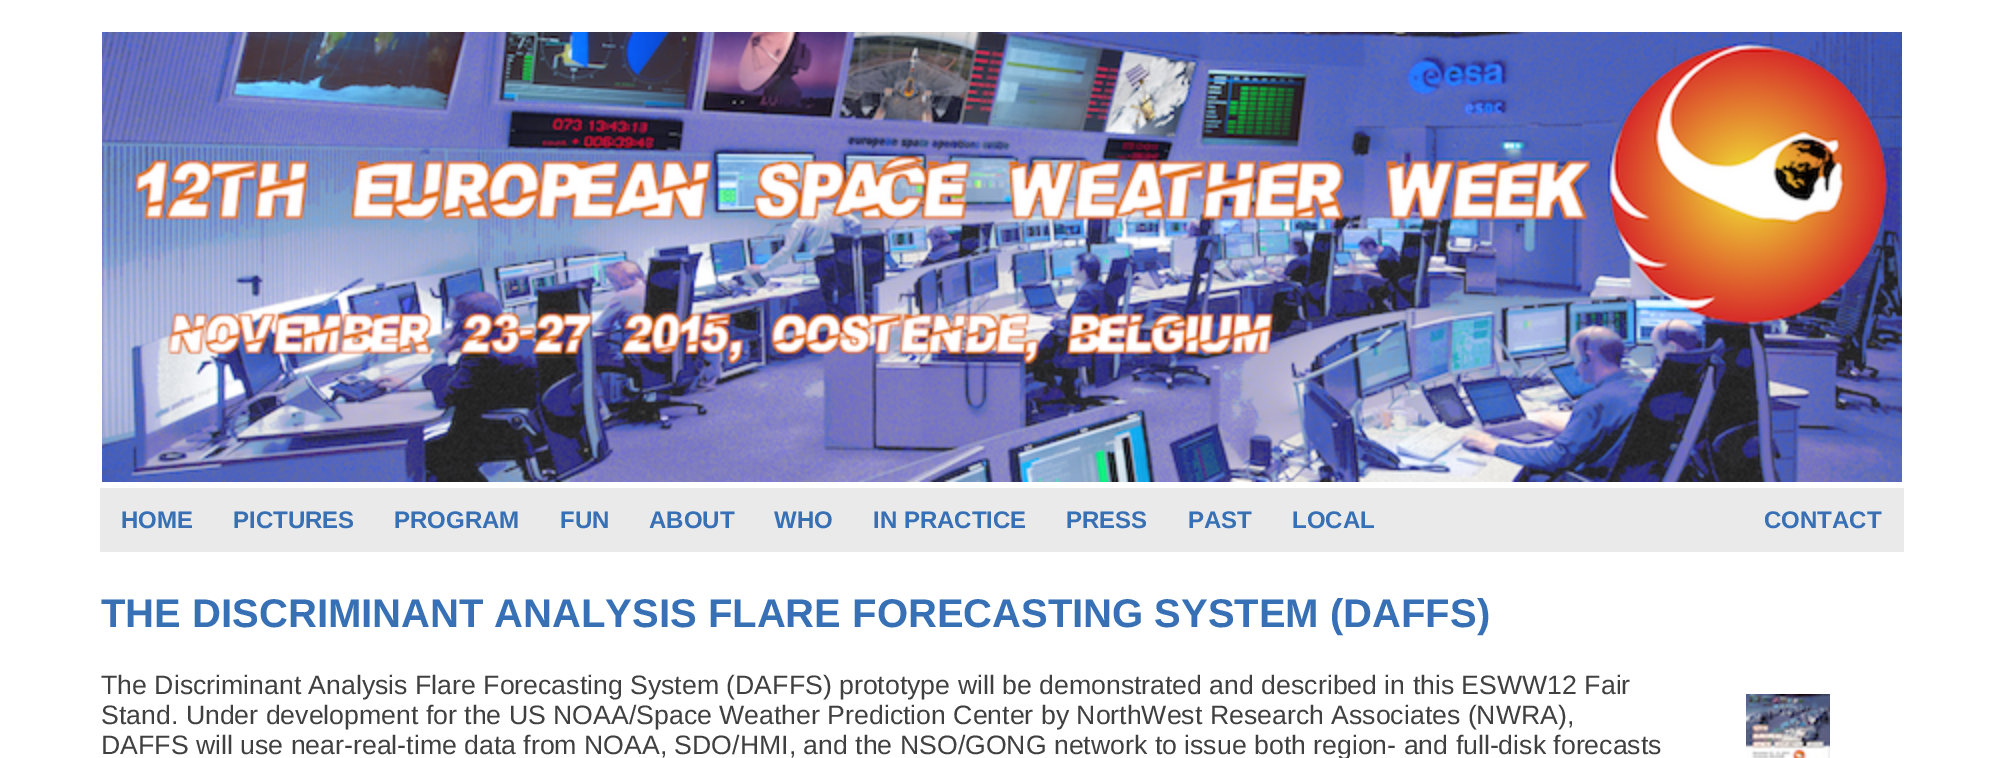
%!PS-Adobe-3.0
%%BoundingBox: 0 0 2001 758
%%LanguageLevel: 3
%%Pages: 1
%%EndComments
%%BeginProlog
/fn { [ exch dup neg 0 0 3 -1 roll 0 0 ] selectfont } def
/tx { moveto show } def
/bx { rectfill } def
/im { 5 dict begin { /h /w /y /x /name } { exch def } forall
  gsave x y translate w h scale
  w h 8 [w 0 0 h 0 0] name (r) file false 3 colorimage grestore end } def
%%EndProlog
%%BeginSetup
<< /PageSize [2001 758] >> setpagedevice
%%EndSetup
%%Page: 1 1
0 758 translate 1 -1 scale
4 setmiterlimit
1 setgray
0 0 2001 758 bx
(image0.raw) 102 32 1800 450 im
0.918 setgray
100 488 1804 64 bx
/LiberationSans-Bold 24 fn
0.216 0.439 0.71 setrgbcolor
(HOME) 121 528 tx
(PICTURES) 233 528 tx
(PROGRAM) 394 528 tx
(FUN) 560 528 tx
(ABOUT) 649 528 tx
(WHO) 774 528 tx
(IN PRACTICE) 873 528 tx
(PRESS) 1066 528 tx
(PAST) 1188 528 tx
(LOCAL) 1292 528 tx
(CONTACT) 1764 528 tx
/LiberationSans-Bold 40 fn
(THE DISCRIMINANT ANALYSIS FLARE FORECASTING SYSTEM \(DAFFS\)) 101 627 tx
/LiberationSans-Regular 26.67 fn
0.251 setgray
(The Discriminant Analysis Flare Forecasting System \(DAFFS\) prototype will be demonstrated and described in this ESWW12 Fair) 101 694 tx
(Stand. Under development for the US NOAA/Space Weather Prediction Center by NorthWest Research Associates \(NWRA\),) 101 724 tx
(DAFFS will use near-real-time data from NOAA, SDO/HMI, and the NSO/GONG network to issue both region- and full-disk forecasts) 101 754 tx
(image1.raw) 1746 694 84 64 im
showpage
%%EOF
